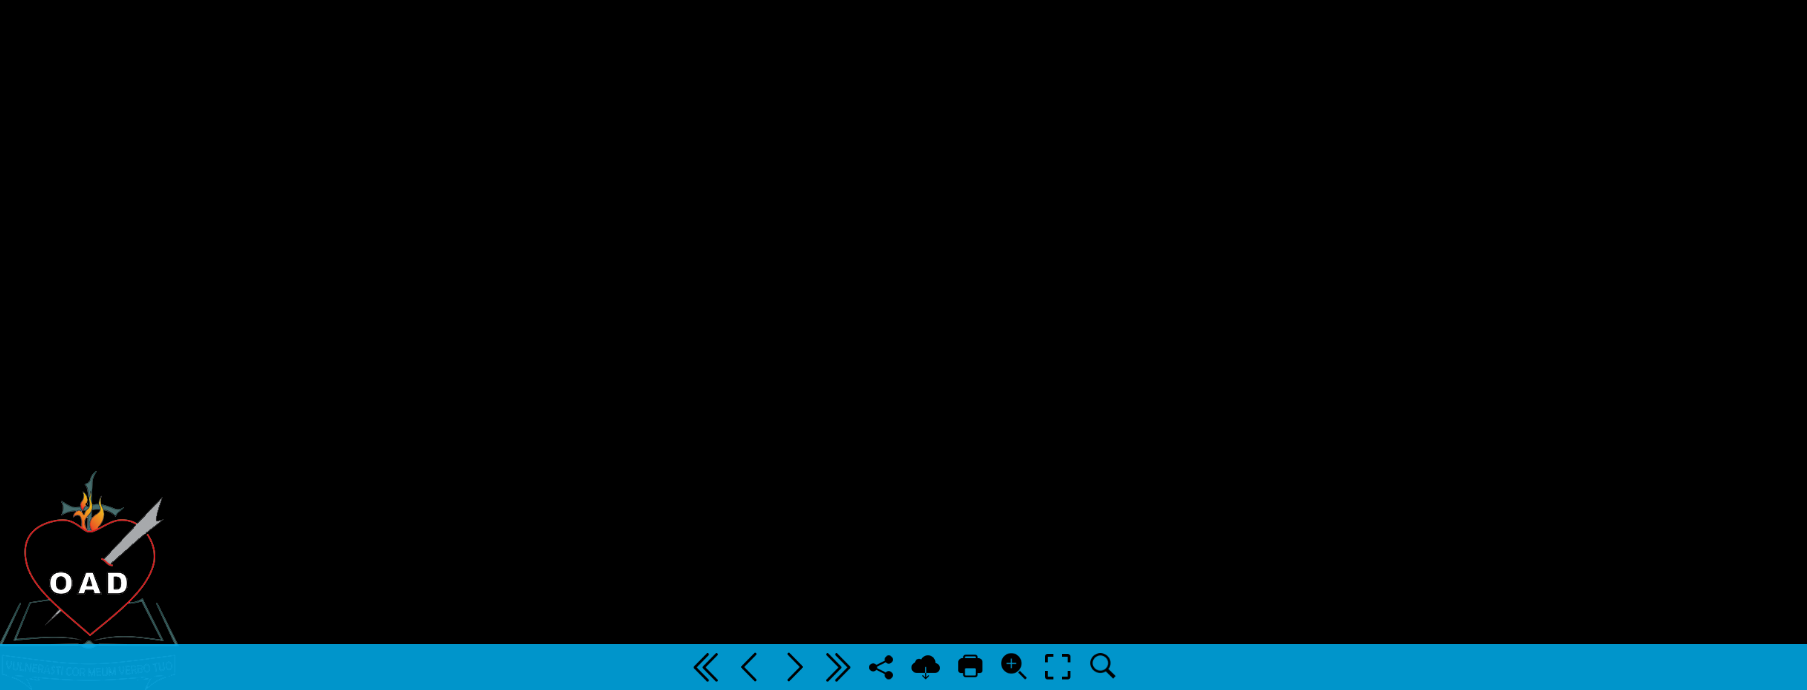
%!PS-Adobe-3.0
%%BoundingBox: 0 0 1807 690
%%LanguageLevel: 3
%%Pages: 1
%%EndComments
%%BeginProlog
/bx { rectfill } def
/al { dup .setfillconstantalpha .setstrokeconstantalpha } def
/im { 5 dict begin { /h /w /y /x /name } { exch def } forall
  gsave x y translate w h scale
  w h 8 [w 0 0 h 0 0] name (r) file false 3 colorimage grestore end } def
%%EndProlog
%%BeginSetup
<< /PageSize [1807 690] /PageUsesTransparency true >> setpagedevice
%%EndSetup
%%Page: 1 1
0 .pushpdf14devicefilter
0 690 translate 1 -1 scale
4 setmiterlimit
0 setgray
0 0 1807 690 bx
(image0.raw) 0 471 179 219 im
0.85 al
0 0.686 0.937 setrgbcolor
0 644 1807 46 bx
1 al
(image1.raw) 693 653 25 29 im
(image2.raw) 741 652 16 30 im
(image3.raw) 787 652 16 30 im
(image4.raw) 826 653 25 29 im
(image5.raw) 869 655 24 25 im
(image6.raw) 911 655 29 25 im
(image7.raw) 958 654 25 24 im
(image8.raw) 1001 653 26 27 im
(image9.raw) 1045 654 26 26 im
(image10.raw) 1090 653 26 26 im
.poppdf14devicefilter showpage
%%EOF
